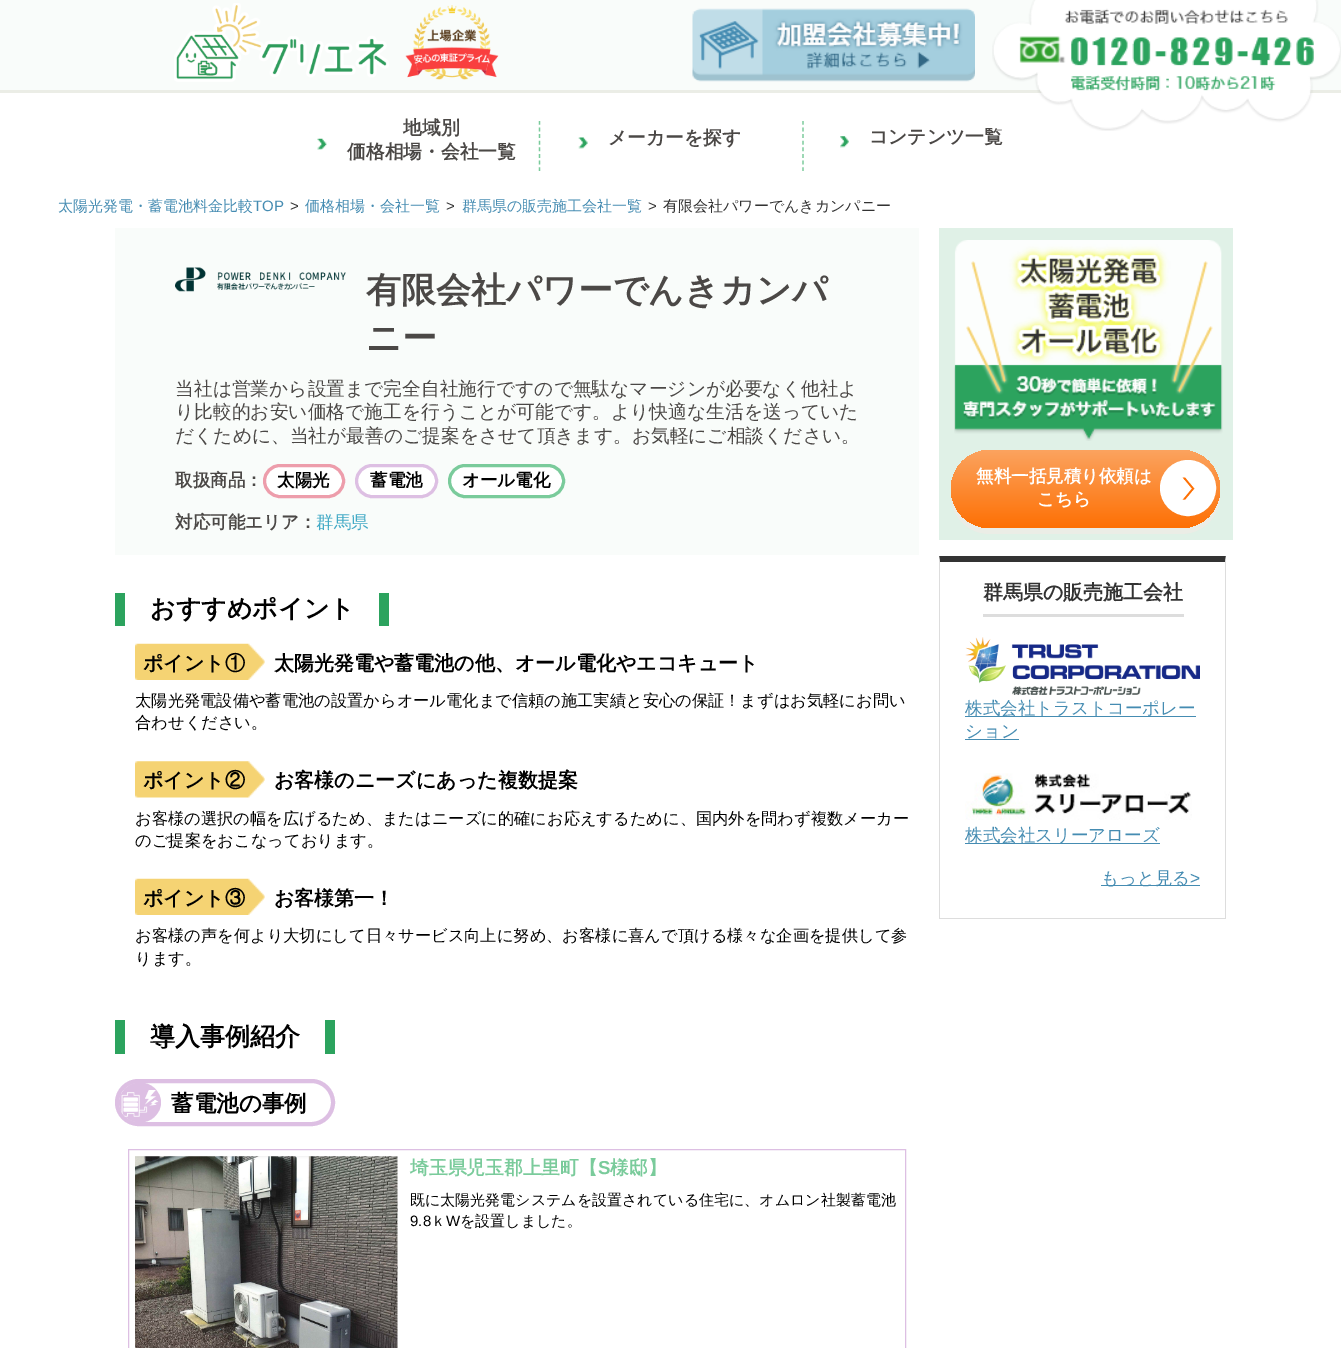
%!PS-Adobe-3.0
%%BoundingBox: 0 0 1341 1348
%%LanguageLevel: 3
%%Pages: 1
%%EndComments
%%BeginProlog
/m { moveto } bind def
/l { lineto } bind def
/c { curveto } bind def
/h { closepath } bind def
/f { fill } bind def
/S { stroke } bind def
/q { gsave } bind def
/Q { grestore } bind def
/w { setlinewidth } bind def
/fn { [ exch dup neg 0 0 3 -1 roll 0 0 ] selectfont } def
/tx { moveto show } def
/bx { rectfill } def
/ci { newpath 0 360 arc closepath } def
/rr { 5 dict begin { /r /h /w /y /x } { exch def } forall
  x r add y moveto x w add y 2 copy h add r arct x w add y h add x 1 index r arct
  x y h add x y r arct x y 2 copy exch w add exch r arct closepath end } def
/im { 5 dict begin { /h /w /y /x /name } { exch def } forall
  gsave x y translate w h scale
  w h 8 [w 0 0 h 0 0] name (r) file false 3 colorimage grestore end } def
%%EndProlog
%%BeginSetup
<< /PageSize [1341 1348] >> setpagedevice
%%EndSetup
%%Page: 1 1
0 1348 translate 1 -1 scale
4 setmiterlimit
1 setgray
0 0 1341 1348 bx
0.976 0.988 0.98 setrgbcolor
0 0 1341 90 bx
(image0.raw) 174 3 215 79 im
(image1.raw) 405 5 94 75 im
(image2.raw) 692 8 283 74 im
0.922 0.929 0.902 setrgbcolor
0 90 1341 3 bx
/WenQuanYiZenHei-Bold 18.75 fn
0.294 0.282 0.275 setrgbcolor
(コンテンツ一覧) 869 143 tx
(image3.raw) 992 0 349 131 im
(image4.raw) 317 138 10 12 im
(地域別) 403 134 tx
(価格相場・会社一覧) 347 158 tx
0.478 0.796 0.608 setrgbcolor
1.2 w
[3.75 2.86] 0 setdash
803 121 m 803 171 l S
539.5 121 m 539.5 171 l S
(image5.raw) 578 137 10 12 im
0.294 0.282 0.275 setrgbcolor
(メーカーを探す) 608 144 tx
(image6.raw) 840 136 9 12 im
/WenQuanYiZenHei-Medium 15 fn
0.271 0.549 0.698 setrgbcolor
(太陽光発電・蓄電池料金比較) 58 211 tx
/LiberationSans-Regular 15 fn
(TOP) 253 211 tx
0.2 setgray
(>) 290 211 tx
/WenQuanYiZenHei-Medium 15 fn
0.271 0.549 0.698 setrgbcolor
(価格相場・会社一覧) 305 211 tx
/LiberationSans-Regular 15 fn
0.2 setgray
(>) 446 211 tx
/WenQuanYiZenHei-Medium 15 fn
0.271 0.549 0.698 setrgbcolor
(群馬県の販売施工会社一覧) 462 211 tx
/LiberationSans-Regular 15 fn
0.2 setgray
(>) 648 211 tx
/WenQuanYiZenHei-Medium 15 fn
(有限会社パワーでんきカンパニー) 663 211 tx
0.976 0.988 0.98 setrgbcolor
115 228 804 327 bx
(image7.raw) 175 267 171 25 im
/WenQuanYiZenHei-Bold 35 fn
0.294 0.282 0.275 setrgbcolor
(有限会社パワーでんきカンパ) 366 302 tx
(ニー) 366 350 tx
/WenQuanYiZenHei-Medium 18.75 fn
(当社は営業から設置まで完全自社施行ですので無駄なマージンが必要なく他社よ) 175 395 tx
(り比較的お安い価格で施工を行うことが可能です。より快適な生活を送っていた) 175 418 tx
(だくために、当社が最善のご提案をさせて頂きます。お気軽にご相談ください。) 175 442 tx
/WenQuanYiZenHei-Bold 17.5 fn
(取扱商品：) 175 486 tx
1 setgray
264.5 465.5 79 31 15.5 rr q f Q
0.929 0.616 0.671 setrgbcolor
3 w
[] 0 setdash
S
0 setgray
(太陽光) 277 486 tx
1 setgray
356.5 465.5 80 31 15.5 rr q f Q
0.867 0.749 0.89 setrgbcolor
S
0 setgray
(蓄電池) 370 486 tx
1 setgray
449.5 465.5 114 31 15.5 rr q f Q
0.478 0.796 0.608 setrgbcolor
S
0 setgray
(オール電化) 462 486 tx
0.294 0.282 0.275 setrgbcolor
(対応可能エリア：) 175 528 tx
/WenQuanYiZenHei-Medium 17.5 fn
0.259 0.667 0.776 setrgbcolor
(群馬県) 316 528 tx
0.173 0.639 0.369 setrgbcolor
379 593 10 33 bx
115 593 10 33 bx
/WenQuanYiZenHei-Bold 25 fn
0 setgray
(おすすめポイント) 150 617 tx
(image8.raw) 135 643 130 37 im
/WenQuanYiZenHei-Bold 20 fn
(ポイント①) 143 670 tx
(太陽光発電や蓄電池の他、オール電化やエコキュート) 274 670 tx
/WenQuanYiZenHei-Medium 16.25 fn
(太陽光発電設備や蓄電池の設置からオール電化まで信頼の施工実績と安心の保証！まずはお気軽にお問い) 135 706 tx
(合わせください。) 135 728 tx
(image9.raw) 135 761 130 37 im
/WenQuanYiZenHei-Bold 20 fn
(お客様のニーズにあった複数提案) 274 787 tx
(ポイント②) 143 787 tx
/WenQuanYiZenHei-Medium 16.25 fn
(お客様の選択の幅を広げるため、またはニーズに的確にお応えするために、国内外を問わず複数メーカー) 135 824 tx
(のご提案をおこなっております。) 135 846 tx
(image8.raw) 135 878 130 37 im
/WenQuanYiZenHei-Bold 20 fn
(ポイント③) 143 905 tx
(お客様第一！) 274 905 tx
/WenQuanYiZenHei-Medium 16.25 fn
(お客様の声を何より大切にして日々サービス向上に努め、お客様に喜んで頂ける様々な企画を提供して参) 135 941 tx
(ります。) 135 964 tx
0.173 0.639 0.369 setrgbcolor
325 1020 10 34 bx
115 1020 10 34 bx
/WenQuanYiZenHei-Bold 25 fn
0 setgray
(導入事例紹介) 150 1045 tx
0.867 0.749 0.89 setrgbcolor
4 w
117 1081 216 43 21.5 rr S
140 1082.5 m 151.5 1082.5 161 1091.5 161 1102.5 c 161 1113.5 151.5 1122.5 140 1122.5 c 128.5 1122.5 119 1113.5 119 1102.5 c 119 1091.5 128.5 1082.5 140 1082.5 c h f
(image10.raw) 121 1090 38 27 im
/WenQuanYiZenHei-Bold 22.5 fn
0 setgray
(蓄電池の事例) 171 1111 tx
0.867 0.749 0.89 setrgbcolor
1 w
128.5 1149.5 777 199 rectstroke
(image11.raw) 135 1156 263 192 im
/WenQuanYiZenHei-Bold 18.75 fn
0.478 0.796 0.608 setrgbcolor
(埼玉県児玉郡上里町【) 410 1174 tx
/LiberationSans-Bold 18.75 fn
(S) 598 1174 tx
/WenQuanYiZenHei-Bold 18.75 fn
(様邸】) 610 1174 tx
/WenQuanYiZenHei-Medium 15 fn
0 setgray
(既に太陽光発電システムを設置されている住宅に、オムロン社製蓄電池) 410 1205 tx
/LiberationSans-Regular 15 fn
(9.8) 410 1226 tx
/WenQuanYiZenHei-Medium 15 fn
(ｋ) 431 1226 tx
/LiberationSans-Regular 15 fn
(W) 446 1226 tx
/WenQuanYiZenHei-Medium 15 fn
(を設置しました。) 460 1226 tx
0.878 0.945 0.906 setrgbcolor
939 228 294 312 bx
(image12.raw) 954 240 269 201 im
0.922 0.929 0.902 setrgbcolor
951 490 m 951 495 l 951 517 968 534 990 534 c 1181 534 l 1203 534 1220 517 1220 495 c 1220 492 l 1218 512 1202 528 1181 528 c 990 528 l 969 528 952 511 951 490 c h f
q 951 450 269 78 39 rr clip newpath
<< /ShadingType 2 /ColorSpace /DeviceRGB /Coords [1086 450 1086 528] /Extend [true true] /Function << /FunctionType 2 /Domain [0 1] /C0 [0.984 0.639 0.373] /C1 [0.996 0.439 0.016] /N 1 >> >> shfill Q
/WenQuanYiZenHei-Bold 17.5 fn
1 setgray
(無料一括見積り依頼は) 976 482 tx
(こちら) 1037 505 tx
1188 488 26 ci q f Q
4 w
S
(image13.raw) 1182 477 13 23 im
0.2 setgray
939 556 m 1226 556 l 1225 562 l 940 562 l h f
0.867 setgray
1226 556 m 1226 919 l 1225 918 l 1225 562 l h f
939 918 287 1 bx
939 919 m 939 556 l 940 562 l 940 918 l h f
983 614 201 3 bx
/WenQuanYiZenHei-Bold 20 fn
0.2 setgray
(群馬県の販売施工会社) 983 599 tx
(image14.raw) 965 637 235 58 im
0.271 0.549 0.698 setrgbcolor
965 716 231 1 bx
/WenQuanYiZenHei-Medium 17.5 fn
(株式会社トラストコーポレー) 965 714 tx
(ション) 965 737 tx
965 739 54 1 bx
(image15.raw) 965 773 227 47 im
965 843 195 1 bx
(株式会社スリーアローズ) 965 841 tx
1101 885 99 1 bx
(もっと見る) 1101 884 tx
/LiberationSans-Regular 17.5 fn
(>) 1190 884 tx
showpage
%%EOF
